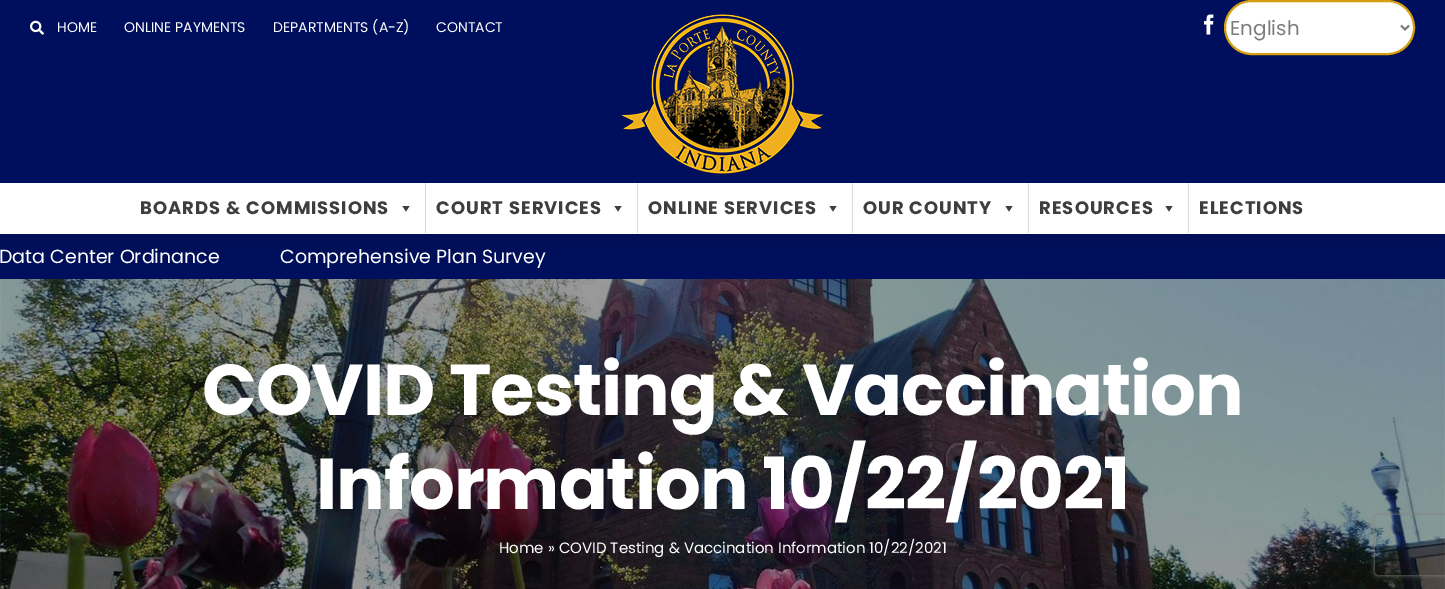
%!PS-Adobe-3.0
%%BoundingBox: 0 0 1445 589
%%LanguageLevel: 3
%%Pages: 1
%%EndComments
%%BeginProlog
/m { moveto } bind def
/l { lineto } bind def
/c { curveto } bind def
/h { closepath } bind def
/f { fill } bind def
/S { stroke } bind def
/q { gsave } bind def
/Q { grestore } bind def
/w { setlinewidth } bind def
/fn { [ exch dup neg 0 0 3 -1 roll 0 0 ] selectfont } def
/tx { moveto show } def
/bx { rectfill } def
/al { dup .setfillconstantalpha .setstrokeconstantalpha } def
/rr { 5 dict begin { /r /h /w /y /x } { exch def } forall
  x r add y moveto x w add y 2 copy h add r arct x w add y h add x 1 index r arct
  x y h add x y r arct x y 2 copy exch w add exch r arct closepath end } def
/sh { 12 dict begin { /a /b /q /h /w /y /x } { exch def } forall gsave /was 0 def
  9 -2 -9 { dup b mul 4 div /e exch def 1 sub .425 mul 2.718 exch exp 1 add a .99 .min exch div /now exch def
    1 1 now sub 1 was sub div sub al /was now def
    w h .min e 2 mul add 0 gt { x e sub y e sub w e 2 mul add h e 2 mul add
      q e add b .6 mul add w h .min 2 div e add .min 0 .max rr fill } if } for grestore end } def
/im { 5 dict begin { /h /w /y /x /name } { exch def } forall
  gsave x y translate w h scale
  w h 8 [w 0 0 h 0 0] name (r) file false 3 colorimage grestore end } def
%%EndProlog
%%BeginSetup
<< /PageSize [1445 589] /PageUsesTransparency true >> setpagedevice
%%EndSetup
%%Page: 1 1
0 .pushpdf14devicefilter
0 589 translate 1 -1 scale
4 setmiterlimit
1 setgray
0 0 1445 589 bx
0 0.059 0.365 setrgbcolor
0 234 1445 45 bx
(image3.raw) 0 279 1445 310 im
q
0 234 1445 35 rectclip
0 setgray
2 12 1441 230 0 25 0.14 sh
Q
0 0 1445 183 bx
(image0.raw) 30 20 14 15 im
/Poppins-Regular 14 fn
1 setgray
(HOME) 57 32 tx
(ONLINE PAYMENTS) 124 32 tx
(DEPARTMENTS \(A-Z\)) 273 32 tx
(CONTACT) 436 32 tx
(image1.raw) 1204 14 10 21 im
1225 1 189 53 26.5 rr q f Q
0.835 0.624 0.059 setrgbcolor
2 w
S
0.482 setgray
1401 25.5 m 1405 29.5 l 1409 25.5 l S
/Poppins-Regular 20 fn
(English) 1230 35 tx
(image2.raw) 621 14 203 160 im
/Poppins-Bold 18 fn
0.243 setgray
140 214 m 1 0 (BOARDS & COMMISSIONS) ashow
409.5 206 m 406 211.5 l 402.5 206 l h f
0.851 setgray
425 183 1 50 bx
0.243 setgray
436 214 m 1 0 (COURT SERVICES) ashow
621.5 206 m 618 211.5 l 614.5 206 l h f
0.851 setgray
637 183 1 50 bx
0.243 setgray
648 214 m 1 0 (ONLINE SERVICES) ashow
836.5 206 m 833 211.5 l 829.5 206 l h f
0.851 setgray
852 183 1 50 bx
0.243 setgray
863 214 m 1 0 (OUR COUNTY) ashow
1012.5 206 m 1009 211.5 l 1005.5 206 l h f
0.851 setgray
1028 183 1 50 bx
0.243 setgray
1039 214 m 1 0 (RESOURCES) ashow
1172.5 206 m 1169 211.5 l 1165.5 206 l h f
0.851 setgray
1188 183 1 50 bx
0.243 setgray
1199 214 m 1 0 (ELECTIONS) ashow
/Poppins-Regular 19 fn
1 setgray
(Data Center Ordinance) -1 263 tx
(Comprehensive Plan Survey) 280 263 tx
/Poppins-Bold 72 fn
202 415 m -1 0 (COVID Testing & Vaccination) ashow
316 509 m -1 0 (Information 10/22/2021) ashow
/Poppins-Regular 15 fn
(Home » COVID Testing & Vaccination Information 10/22/2021) 499 553 tx
q
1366 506 m 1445 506 l 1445 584 l 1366 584 l h 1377 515 m 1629 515 l 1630 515 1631 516 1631 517 c 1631 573 l 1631 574 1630 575 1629 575 c 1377 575 l 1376 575 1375 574 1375 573 c 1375 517 l 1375 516 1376 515 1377 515 c h eoclip newpath
0.502 setgray
1375 515 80 60 2 2.5 1 sh
Q
.poppdf14devicefilter showpage
%%EOF
